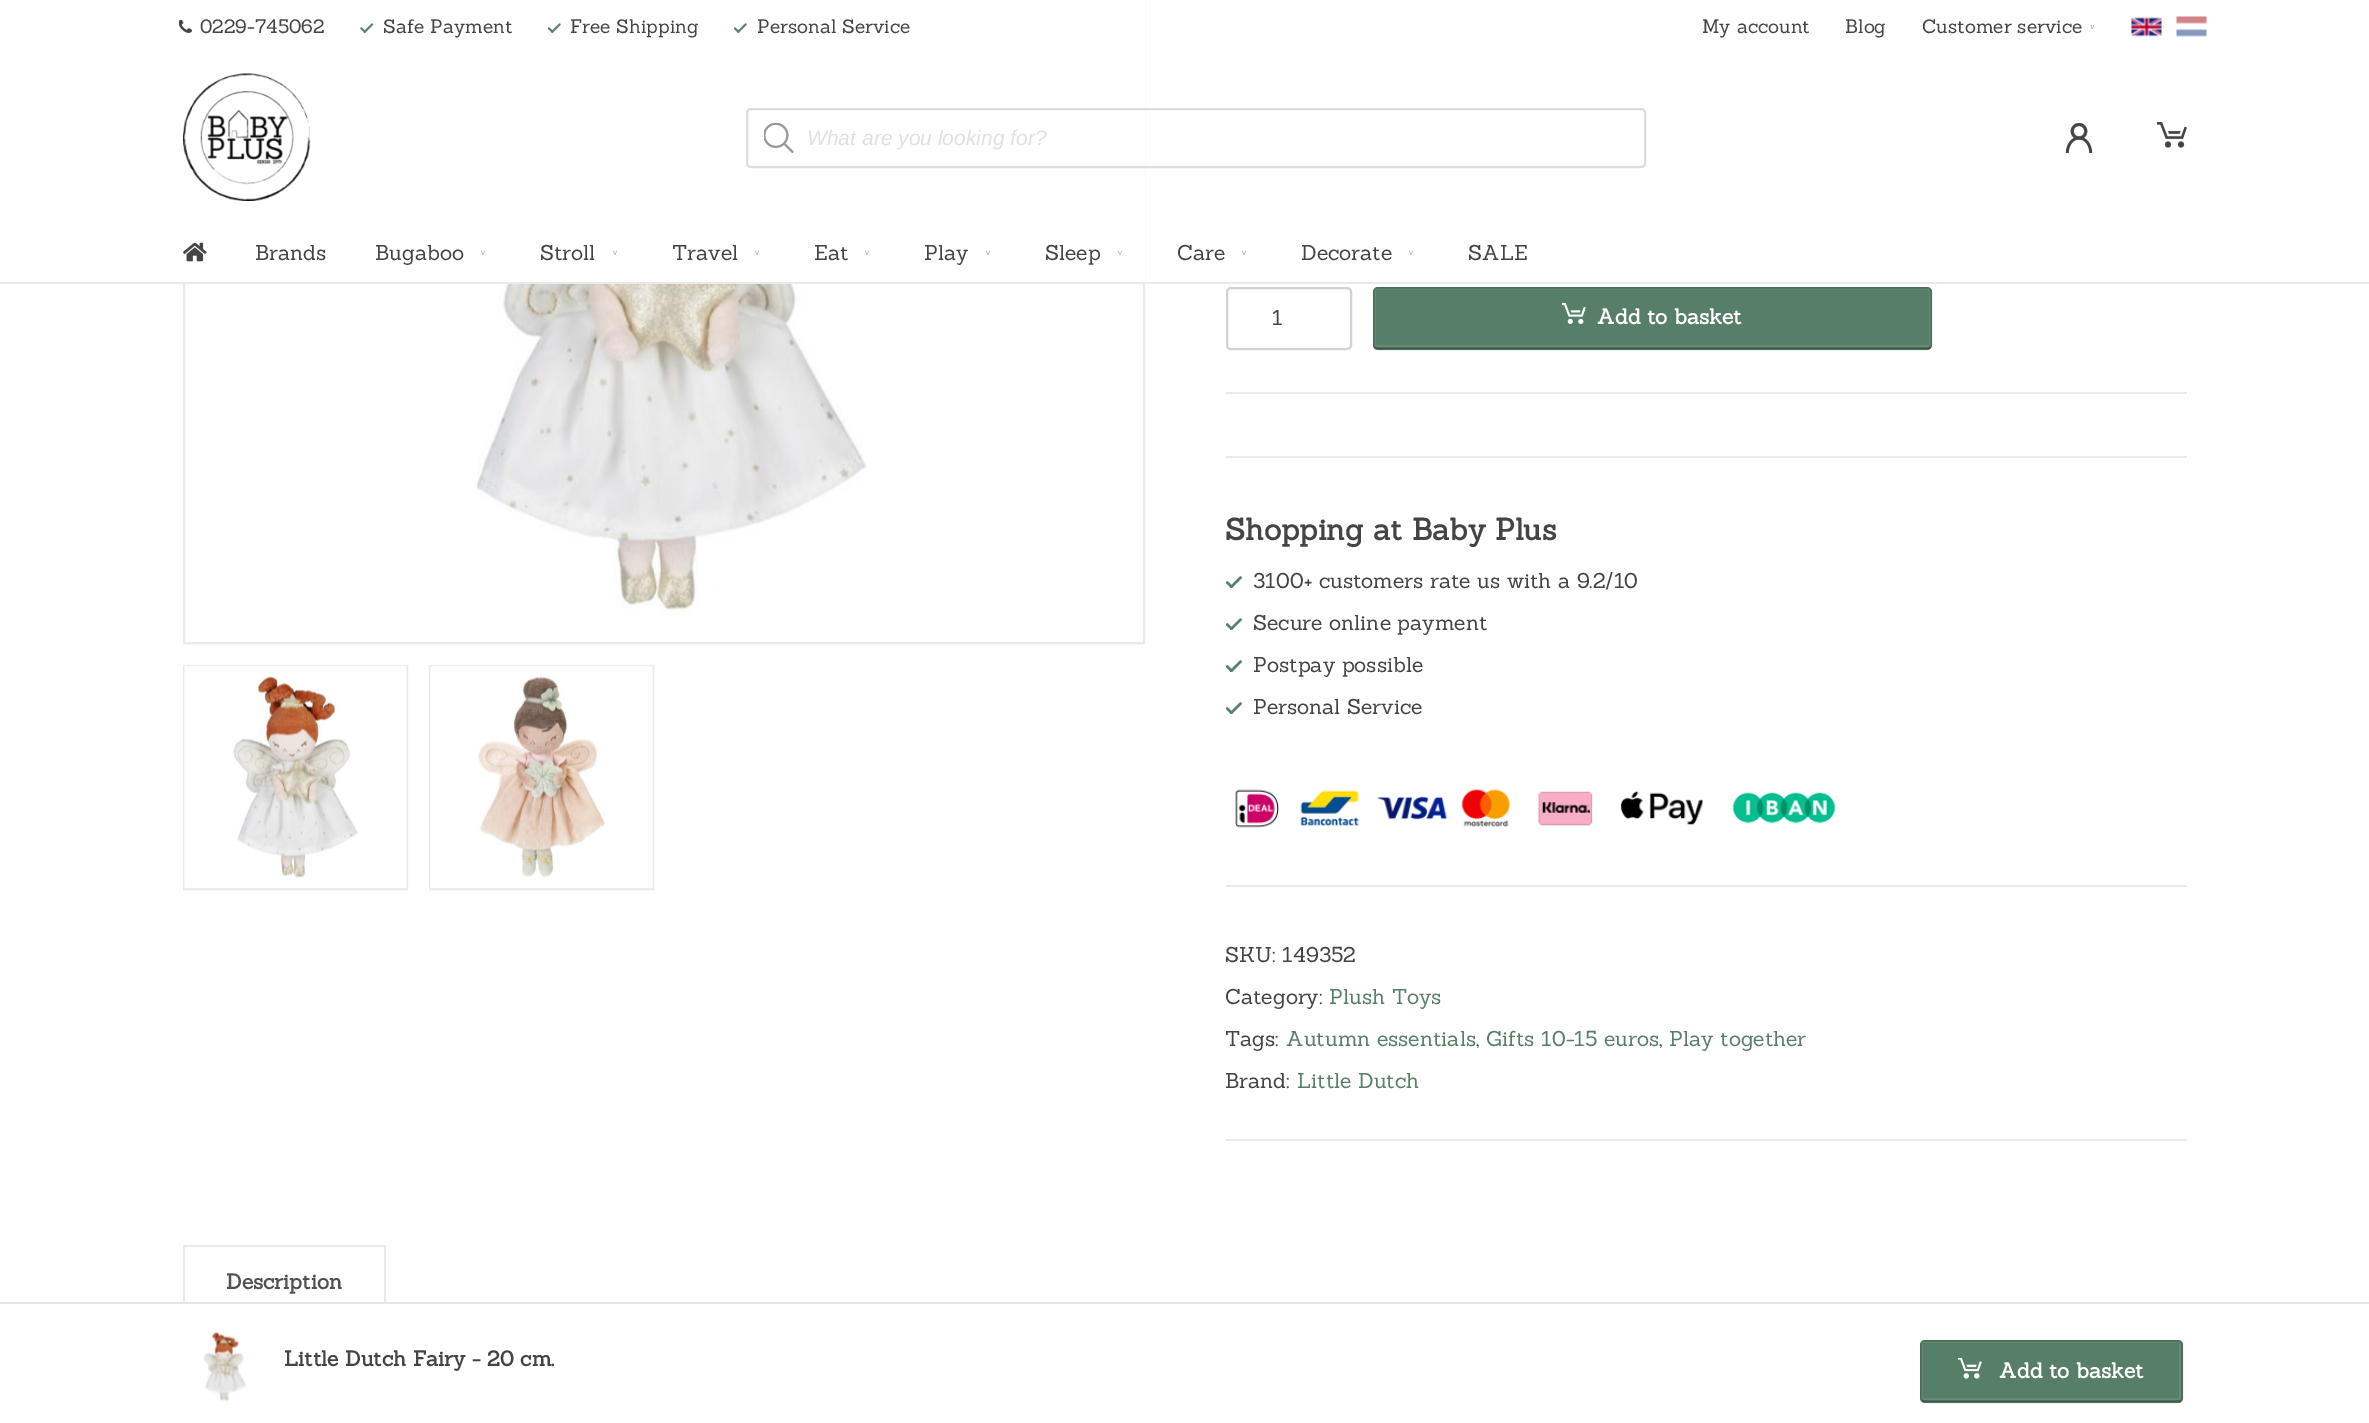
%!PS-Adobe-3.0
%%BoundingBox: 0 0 2369 1423
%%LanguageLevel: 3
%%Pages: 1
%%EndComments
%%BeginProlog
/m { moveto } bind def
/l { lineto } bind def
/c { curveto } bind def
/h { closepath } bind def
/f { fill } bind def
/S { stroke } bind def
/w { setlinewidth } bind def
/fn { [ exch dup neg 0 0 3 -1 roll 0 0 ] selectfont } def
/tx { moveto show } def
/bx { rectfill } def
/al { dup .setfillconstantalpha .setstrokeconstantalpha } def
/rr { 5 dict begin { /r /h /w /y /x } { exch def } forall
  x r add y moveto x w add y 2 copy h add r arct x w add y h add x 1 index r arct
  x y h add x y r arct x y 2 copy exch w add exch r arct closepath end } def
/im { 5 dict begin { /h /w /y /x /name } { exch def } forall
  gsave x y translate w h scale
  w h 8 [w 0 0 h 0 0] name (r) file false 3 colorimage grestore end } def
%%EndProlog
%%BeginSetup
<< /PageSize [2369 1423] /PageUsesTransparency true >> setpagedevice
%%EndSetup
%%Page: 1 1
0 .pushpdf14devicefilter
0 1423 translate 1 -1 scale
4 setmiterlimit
1 setgray
0 0 2369 1423 bx
0.918 setgray
2 w
184 -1 960 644 rectstroke
1 setgray
183 0 962 282 bx
0.918 setgray
0 282 2369 2 bx
(image0.raw) 179 20 13 13 im
/Sanchez-Regular 19 fn
0.267 setgray
(0229-745062) 200 33 tx
(image1.raw) 360 23 14 10 im
(Safe Payment) 383 33 tx
(image2.raw) 548 23 13 10 im
(Free Shipping) 570 33 tx
(image2.raw) 734 23 13 10 im
(Personal Service) 757 33 tx
(My account) 1702 33 tx
(Blog) 1845 33 tx
(Customer service) 1922 33 tx
/Sanchez-Regular 8 fn
0.635 setgray
2090 29 m 9 0 (v) ashow
(image3.raw) 2131 17 31 20 im
(image4.raw) 2176 16 31 21 im
(image5.raw) 183 73 128 128 im
0.867 setgray
747 109 898 58 4 rr S
(image6.raw) 764 123 30 30 im
/LiberationSans-Italic 21 fn
0.878 setgray
(What are you looking for?) 807 145 tx
(image7.raw) 2065 123 28 30 im
(image8.raw) 2157 122 30 26 im
(image9.raw) 183 242 24 20 im
/Sanchez-Regular 21 fn
0.267 setgray
(Brands) 255 260 tx
(Bugaboo) 375 260 tx
/LiberationSans-Regular 8 fn
0.635 setgray
481 255 m 8 0 (v) ashow
/Sanchez-Regular 21 fn
0.267 setgray
(Stroll) 540 260 tx
/LiberationSans-Regular 8 fn
0.635 setgray
613 255 m 8 0 (v) ashow
/Sanchez-Regular 21 fn
0.267 setgray
(Travel) 672 260 tx
/LiberationSans-Regular 8 fn
0.635 setgray
755 255 m 8 0 (v) ashow
/Sanchez-Regular 21 fn
0.267 setgray
(Eat) 814 260 tx
/LiberationSans-Regular 8 fn
0.635 setgray
865 255 m 8 0 (v) ashow
/Sanchez-Regular 21 fn
0.267 setgray
(Play) 924 260 tx
/LiberationSans-Regular 8 fn
0.635 setgray
986 255 m 8 0 (v) ashow
/Sanchez-Regular 21 fn
0.267 setgray
(Sleep) 1045 260 tx
/LiberationSans-Regular 8 fn
0.635 setgray
1118 255 m 8 0 (v) ashow
/Sanchez-Regular 21 fn
0.267 setgray
(Care) 1177 260 tx
/LiberationSans-Regular 8 fn
0.635 setgray
1242 255 m 8 0 (v) ashow
/Sanchez-Regular 21 fn
0.267 setgray
(Decorate) 1301 260 tx
/LiberationSans-Regular 8 fn
0.635 setgray
1409 255 m 8 0 (v) ashow
/Sanchez-Regular 21 fn
0.267 setgray
(SALE) 1468 260 tx
(image10.raw) 461 284 406 332 im
0.918 setgray
184 666 223 223 rectstroke
(image11.raw) 184 665 223 224 im
430 666 223 223 rectstroke
(image12.raw) 430 665 223 224 im
1226 392 961 2 bx
0.824 setgray
1227 288 124 61 4 rr S
0.267 setgray
(1) 1272 325 tx
0.341 0.498 0.404 setrgbcolor
1373 287 559 63 5 rr f
0.408 0.549 0.463 setrgbcolor
1.5 w
1376.5 289 m 1928 289 l 1931.5 289 1930 296 1930 300 c 1930 345.5 l 1928 346 l 1376.5 346 l 1375 345.5 l 1375 290 l h S
0.15 al
0 setgray
2 w
1374 288 557 61 4 rr S
1374 347 557 2 bx
1 al
(image13.raw) 1562 303 24 21 im
/Sanchez-Bold 21 fn
1 setgray
(Add to basket) 1597 324 tx
0.918 setgray
1226 456 961 2 bx
1226 885 961 2 bx
/Sanchez-Bold 30 fn
0.267 setgray
(Shopping at Baby Plus) 1225 540 tx
(image14.raw) 1226 576 16 12 im
/Sanchez-Regular 21 fn
(3100+ customers rate us with a 9.2/10) 1253 588 tx
(image14.raw) 1226 618 16 12 im
(Secure online payment) 1253 630 tx
(image14.raw) 1226 660 16 12 im
(Postpay possible) 1253 672 tx
(image14.raw) 1226 702 16 12 im
(Personal Service) 1253 714 tx
(image15.raw) 1235 789 601 39 im
0.918 setgray
1226 1139 961 2 bx
0.267 setgray
(SKU: 149352) 1225 962 tx
(Category:) 1225 1004 tx
0.341 0.498 0.404 setrgbcolor
(Plush Toys) 1329 1004 tx
0.267 setgray
(Tags:) 1225 1046 tx
0.341 0.498 0.404 setrgbcolor
(Autumn essentials) 1286 1046 tx
0.267 setgray
(,) 1476 1046 tx
0.341 0.498 0.404 setrgbcolor
(Gifts 10-15 euros) 1486 1046 tx
0.267 setgray
(,) 1659 1046 tx
0.341 0.498 0.404 setrgbcolor
(Play together) 1669 1046 tx
0.267 setgray
(Brand:) 1225 1088 tx
0.341 0.498 0.404 setrgbcolor
(Little Dutch) 1297 1088 tx
0.918 setgray
183 1245 203 2 bx
384 1245 2 57 bx
183 1245 2 57 bx
/Sanchez-Bold 21 fn
0.318 setgray
(Description) 226 1289 tx
0.902 setgray
0 1302 2369 2 bx
(image16.raw) 203 1331 43 71 im
0.267 setgray
(Little Dutch Fairy - 20 cm.) 284 1366 tx
0.341 0.498 0.404 setrgbcolor
1920 1340 263 63 5 rr f
0.408 0.549 0.463 setrgbcolor
1.5 w
1924 1342 m 2178.5 1342 l 2179.5 1342 2180 1342.5 2180 1343.5 c 2180 1398.5 l 2178.5 1399 l 1924 1399 l 1922 1398.5 l 1922 1343.5 l 1922 1342.5 1923 1342 1924 1342 c h S
0.15 al
0 setgray
2 w
1921 1341 261 61 4 rr S
1922 1400 259 2 bx
1 al
(image17.raw) 1958 1358 24 21 im
1 setgray
(Add to basket) 1999 1378 tx
.poppdf14devicefilter showpage
%%EOF
